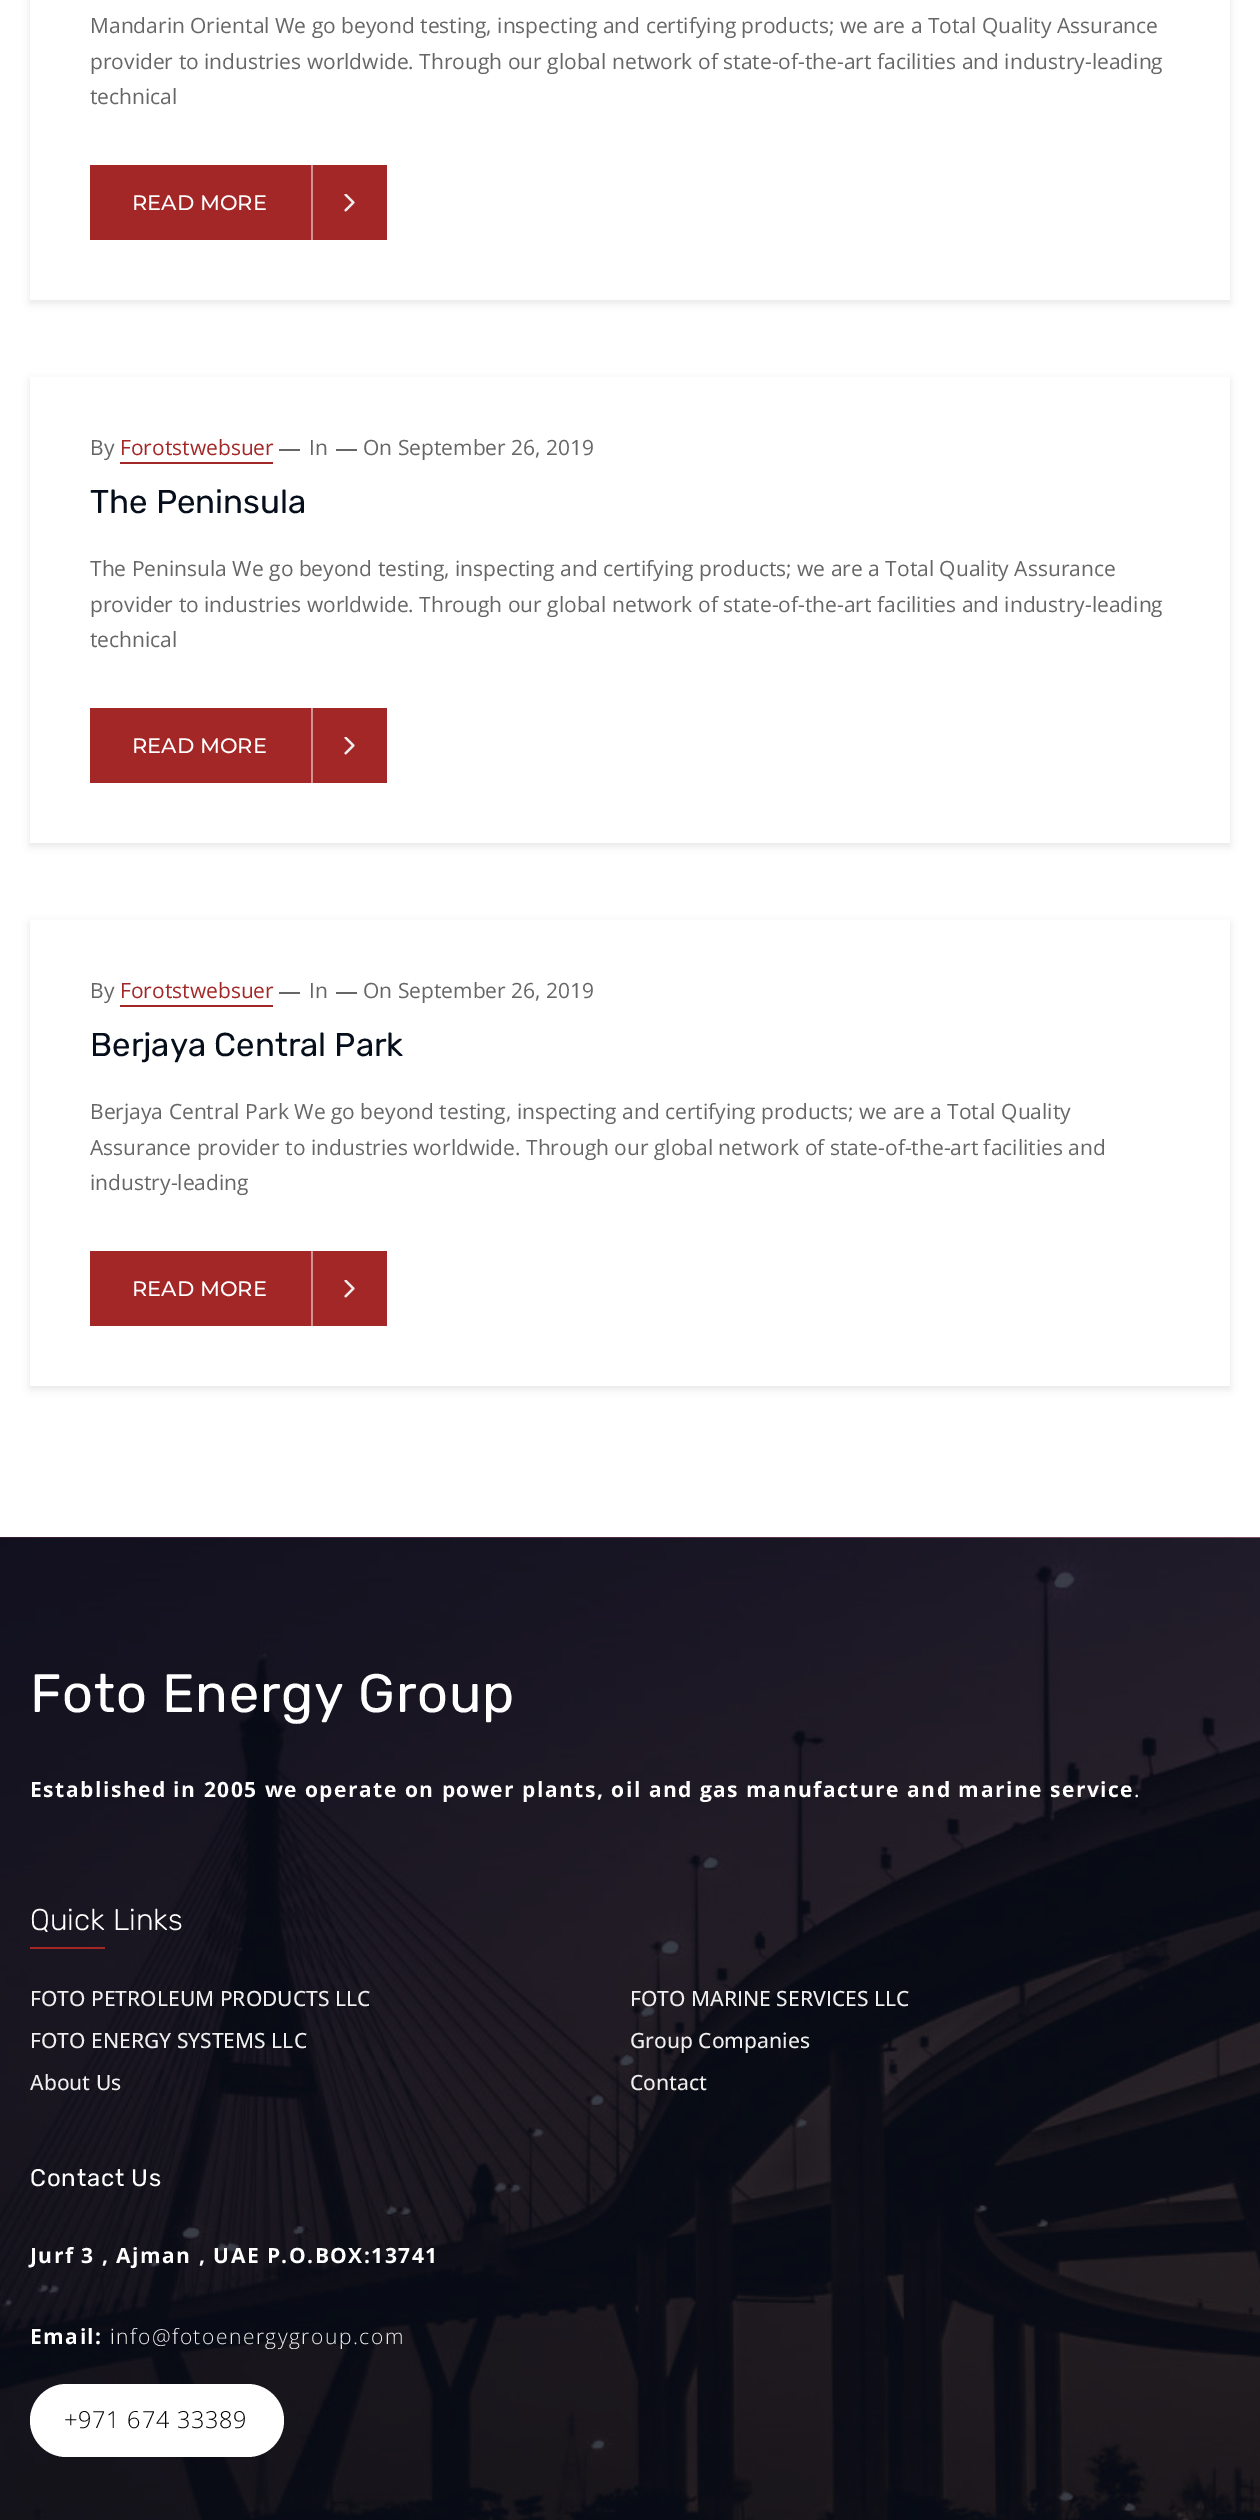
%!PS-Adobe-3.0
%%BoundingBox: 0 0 1260 2520
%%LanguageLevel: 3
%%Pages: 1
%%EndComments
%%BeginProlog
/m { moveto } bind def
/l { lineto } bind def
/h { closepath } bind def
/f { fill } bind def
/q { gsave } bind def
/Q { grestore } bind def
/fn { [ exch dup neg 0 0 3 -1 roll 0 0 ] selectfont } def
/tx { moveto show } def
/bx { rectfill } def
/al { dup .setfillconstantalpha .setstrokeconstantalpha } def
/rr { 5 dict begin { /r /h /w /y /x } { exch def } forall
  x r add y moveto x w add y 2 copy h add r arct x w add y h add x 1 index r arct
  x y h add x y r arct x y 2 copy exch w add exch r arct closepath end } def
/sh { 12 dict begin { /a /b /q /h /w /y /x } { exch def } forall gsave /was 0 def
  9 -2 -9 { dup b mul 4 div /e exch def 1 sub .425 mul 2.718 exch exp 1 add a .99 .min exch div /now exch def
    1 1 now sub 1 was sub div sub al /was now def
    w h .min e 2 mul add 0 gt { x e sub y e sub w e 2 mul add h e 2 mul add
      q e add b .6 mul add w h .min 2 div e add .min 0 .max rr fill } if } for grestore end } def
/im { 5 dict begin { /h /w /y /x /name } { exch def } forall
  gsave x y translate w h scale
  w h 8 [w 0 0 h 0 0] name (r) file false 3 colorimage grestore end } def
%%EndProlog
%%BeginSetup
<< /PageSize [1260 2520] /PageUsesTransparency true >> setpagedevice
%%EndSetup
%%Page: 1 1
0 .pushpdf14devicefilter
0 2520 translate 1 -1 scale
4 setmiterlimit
1 setgray
0 0 1260 2520 bx
q
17 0 m 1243 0 l 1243 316 l 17 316 l h 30 -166 m 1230 -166 l 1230 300 l 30 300 l h eoclip newpath
0 setgray
30 -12 1200 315 0 4 0.1 sh
Q
/OpenSans-Regular 21 fn
0.4 setgray
(Mandarin Oriental We go beyond testing, inspecting and certifying products; we are a Total Quality Assurance) 90 33 tx
(provider to industries worldwide. Through our global network of state-of-the-art facilities and industry-leading) 90 69 tx
(technical) 90 104 tx
0.643 0.153 0.153 setrgbcolor
90 165 297 75 bx
/Montserrat-Medium 21 fn
1 setgray
(READ MORE) 132 210 tx
0.824 0.576 0.576 setrgbcolor
311 165 2 75 bx
(image0.raw) 344 194 11 18 im
q
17 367 m 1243 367 l 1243 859 l 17 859 l h 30 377 m 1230 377 l 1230 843 l 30 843 l h eoclip newpath
0 setgray
30 380 1200 466 0 4 0.1 sh
Q
/OpenSans-Regular 21 fn
0.4 setgray
(By) 90 455 tx
0.643 0.153 0.153 setrgbcolor
(Forotstwebsuer) 120 455 tx
120 462 153 2 bx
0.4 setgray
279 449 21 2 bx
(In) 309 455 tx
336 449 21 2 bx
(On September 26, 2019) 363 455 tx
/Rubik-Regular 33 fn
0.02 0.055 0.102 setrgbcolor
(The Peninsula) 90 513 tx
/OpenSans-Regular 21 fn
0.4 setgray
(The Peninsula We go beyond testing, inspecting and certifying products; we are a Total Quality Assurance) 90 576 tx
(provider to industries worldwide. Through our global network of state-of-the-art facilities and industry-leading) 90 612 tx
(technical) 90 647 tx
0.643 0.153 0.153 setrgbcolor
90 708 297 75 bx
/Montserrat-Medium 21 fn
1 setgray
(READ MORE) 132 753 tx
0.824 0.576 0.576 setrgbcolor
311 708 2 75 bx
(image0.raw) 344 737 11 18 im
q
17 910 m 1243 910 l 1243 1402 l 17 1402 l h 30 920 m 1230 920 l 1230 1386 l 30 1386 l h eoclip newpath
0 setgray
30 923 1200 466 0 4 0.1 sh
Q
/OpenSans-Regular 21 fn
0.4 setgray
(By) 90 998 tx
0.643 0.153 0.153 setrgbcolor
(Forotstwebsuer) 120 998 tx
120 1005 153 2 bx
0.4 setgray
279 992 21 2 bx
(In) 309 998 tx
336 992 21 2 bx
(On September 26, 2019) 363 998 tx
/Rubik-Regular 33 fn
0.02 0.055 0.102 setrgbcolor
(Berjaya Central Park) 90 1056 tx
/OpenSans-Regular 21 fn
0.4 setgray
(Berjaya Central Park We go beyond testing, inspecting and certifying products; we are a Total Quality) 90 1119 tx
(Assurance provider to industries worldwide. Through our global network of state-of-the-art facilities and) 90 1155 tx
(industry-leading) 90 1190 tx
0.643 0.153 0.153 setrgbcolor
90 1251 297 75 bx
/Montserrat-Medium 21 fn
1 setgray
(READ MORE) 132 1296 tx
0.824 0.576 0.576 setrgbcolor
311 1251 2 75 bx
(image0.raw) 344 1280 11 18 im
(image1.raw) 0 1537 1260 983 im
/Rubik-Regular 54 fn
1 setgray
30 1712 m 0.75 0 (Foto Energy Group) ashow
/OpenSans-Bold 21 fn
30 1797 m 1.5 0 (Established in 2005 we operate on power plants, oil and gas manufacture and marine service) ashow
/OpenSans-Regular 21 fn
1134 1797 m 1.5 0 (.) ashow
/Rubik-Light 30 fn
(Quick Links) 30 1930 tx
0.643 0.153 0.153 setrgbcolor
30 1947 75 2 bx
/OpenSans-Medium 21 fn
0.933 setgray
(FOTO PETROLEUM PRODUCTS LLC) 30 2006 tx
(FOTO MARINE SERVICES LLC) 630 2006 tx
(FOTO ENERGY SYSTEMS LLC) 30 2048 tx
(Group Companies) 630 2048 tx
(About Us) 30 2090 tx
(Contact) 630 2090 tx
/Rubik-Regular 24 fn
1 setgray
30 2186 m 0.75 0 (Contact Us) ashow
/OpenSans-Bold 21 fn
30 2263 m 1.5 0 (Jurf 3 , Ajman , UAE P.O.BOX:13741) ashow
30 2344 m 1.5 0 (Email:) ashow
/OpenSans-Light 21 fn
0.933 setgray
110 2344 m 1.5 0 (info@fotoenergygroup.com) ashow
1 setgray
30 2384 254 73 36.5 rr f
/OpenSans-Light 23.5 fn
0 setgray
64 2428 m 0.75 0 (+971 674 33389) ashow
.poppdf14devicefilter showpage
%%EOF
